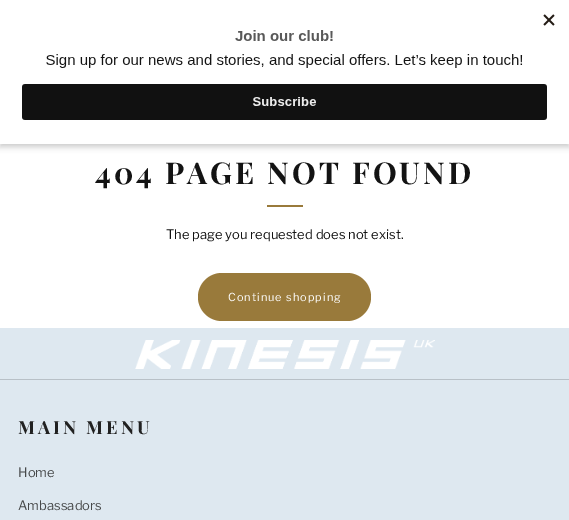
%!PS-Adobe-3.0
%%BoundingBox: 0 0 569 520
%%LanguageLevel: 3
%%Pages: 1
%%EndComments
%%BeginProlog
/m { moveto } bind def
/f { fill } bind def
/fn { [ exch dup neg 0 0 3 -1 roll 0 0 ] selectfont } def
/tx { moveto show } def
/bx { rectfill } def
/al { dup .setfillconstantalpha .setstrokeconstantalpha } def
/rr { 5 dict begin { /r /h /w /y /x } { exch def } forall
  x r add y moveto x w add y 2 copy h add r arct x w add y h add x 1 index r arct
  x y h add x y r arct x y 2 copy exch w add exch r arct closepath end } def
/sh { 12 dict begin { /a /b /q /h /w /y /x } { exch def } forall gsave /was 0 def
  9 -2 -9 { dup b mul 4 div /e exch def 1 sub .425 mul 2.718 exch exp 1 add a .99 .min exch div /now exch def
    1 1 now sub 1 was sub div sub al /was now def
    w h .min e 2 mul add 0 gt { x e sub y e sub w e 2 mul add h e 2 mul add
      q e add b .6 mul add w h .min 2 div e add .min 0 .max rr fill } if } for grestore end } def
/im { 5 dict begin { /h /w /y /x /name } { exch def } forall
  gsave x y translate w h scale
  w h 8 [w 0 0 h 0 0] name (r) file false 3 colorimage grestore end } def
%%EndProlog
%%BeginSetup
<< /PageSize [569 520] /PageUsesTransparency true >> setpagedevice
%%EndSetup
%%Page: 1 1
0 .pushpdf14devicefilter
0 520 translate 1 -1 scale
4 setmiterlimit
1 setgray
0 0 569 520 bx
0 setgray
0 3 569 144 0 3 0.2 sh
1 setgray
0 0 569 144 bx
(image0.raw) 22 14 533 106 im
/PlayfairDisplay-Bold 30 fn
0.075 setgray
95 184 m 3 0 (404 PAGE NOT FOUND) ashow
0.6 0.478 0.231 setrgbcolor
267 205 36 2 bx
/LibreFranklin-Regular 13 fn
0.075 setgray
(The page you requested does not exist.) 166 239 tx
0.6 0.478 0.231 setrgbcolor
198 273 173 48 24 rr f
/LibreFranklin-Regular 11 fn
1 setgray
228 301 m 1 0 (Continue shopping) ashow
0.871 0.91 0.941 setrgbcolor
0 328 569 51 bx
(image1.raw) 135 340 300 29 im
0 380 569 140 bx
0.722 0.753 0.78 setrgbcolor
0 379 569 1 bx
/PlayfairDisplay-Bold 18.25 fn
0.129 setgray
18 434 m 3 0 (MAIN MENU) ashow
/LibreFranklin-Regular 13 fn
0.278 0.286 0.29 setrgbcolor
(Home) 18 477 tx
(Ambassadors) 18 510 tx
.poppdf14devicefilter showpage
%%EOF
